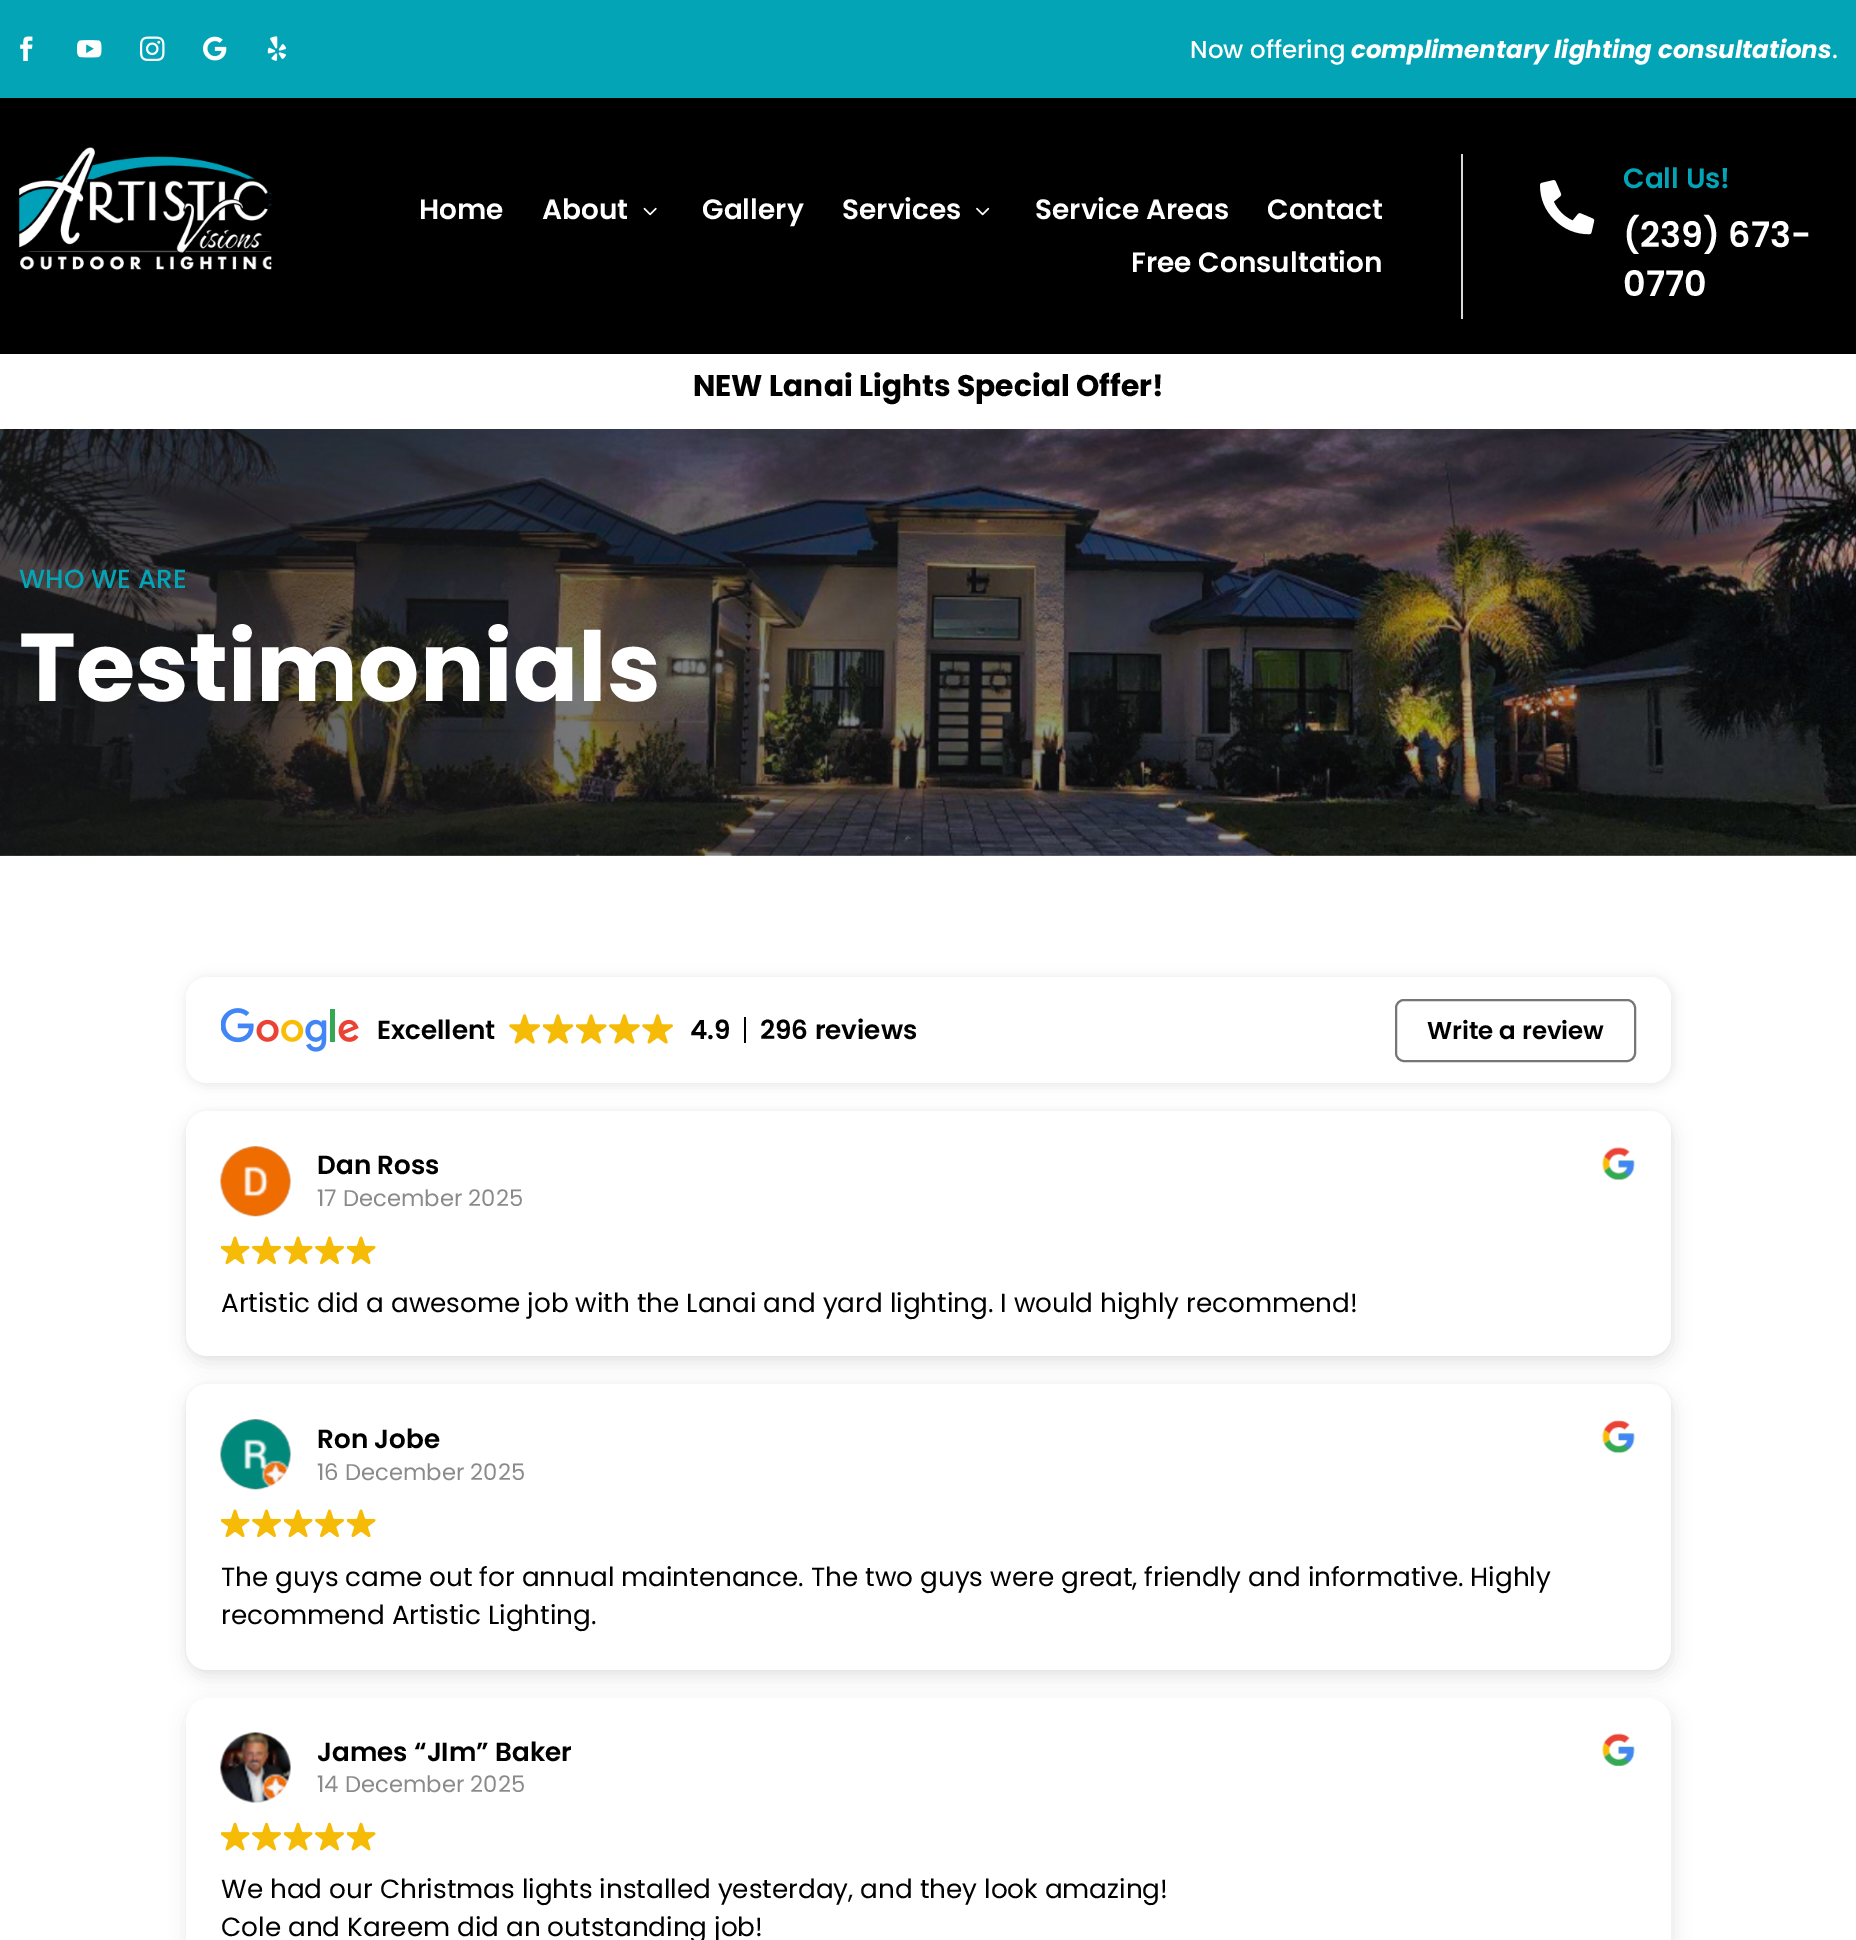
%!PS-Adobe-3.0
%%BoundingBox: 0 0 1856 1940
%%LanguageLevel: 3
%%Pages: 1
%%EndComments
%%BeginProlog
/m { moveto } bind def
/l { lineto } bind def
/c { curveto } bind def
/h { closepath } bind def
/f { fill } bind def
/S { stroke } bind def
/q { gsave } bind def
/Q { grestore } bind def
/w { setlinewidth } bind def
/fn { [ exch dup neg 0 0 3 -1 roll 0 0 ] selectfont } def
/tx { moveto show } def
/bx { rectfill } def
/al { dup .setfillconstantalpha .setstrokeconstantalpha } def
/rr { 5 dict begin { /r /h /w /y /x } { exch def } forall
  x r add y moveto x w add y 2 copy h add r arct x w add y h add x 1 index r arct
  x y h add x y r arct x y 2 copy exch w add exch r arct closepath end } def
/sh { 12 dict begin { /a /b /q /h /w /y /x } { exch def } forall gsave /was 0 def
  9 -2 -9 { dup b mul 4 div /e exch def 1 sub .425 mul 2.718 exch exp 1 add a .99 .min exch div /now exch def
    1 1 now sub 1 was sub div sub al /was now def
    w h .min e 2 mul add 0 gt { x e sub y e sub w e 2 mul add h e 2 mul add
      q e add b .6 mul add w h .min 2 div e add .min 0 .max rr fill } if } for grestore end } def
/im { 5 dict begin { /h /w /y /x /name } { exch def } forall
  gsave x y translate w h scale
  w h 8 [w 0 0 h 0 0] name (r) file false 3 colorimage grestore end } def
%%EndProlog
%%BeginSetup
<< /PageSize [1856 1940] /PageUsesTransparency true >> setpagedevice
%%EndSetup
%%Page: 1 1
0 .pushpdf14devicefilter
0 1940 translate 1 -1 scale
4 setmiterlimit
1 setgray
0 0 1856 1940 bx
0.008 0.643 0.71 setrgbcolor
0 0 1856 98 bx
(image0.raw) 20 36 13 25 im
(image1.raw) 77 40 25 18 im
(image2.raw) 140 36 25 25 im
(image3.raw) 203 36 24 25 im
(image4.raw) 267 36 19 25 im
/Poppins-Medium 24.5 fn
1 setgray
(Now offering) 1190 58 tx
/Poppins-BoldItalic 24.5 fn
(complimentary lighting consultations) 1351 58 tx
/Poppins-Medium 24.5 fn
(.) 1832 58 tx
0 setgray
0 98 1856 256 bx
(image5.raw) 19 147 253 123 im
0.847 setgray
1461 154 2 165 bx
/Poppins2-SemiBold 28 fn
1 setgray
(Home) 419 219 tx
(About) 542 219 tx
(image6.raw) 643 207 14 9 im
(Gallery) 702 219 tx
(Services) 842 219 tx
(image7.raw) 976 207 14 9 im
(Service Areas) 1035 219 tx
(Contact) 1267 219 tx
(Free Consultation) 1131 272 tx
(image8.raw) 1540 180 55 55 im
0.008 0.643 0.71 setrgbcolor
(Call Us!) 1623 188 tx
/Poppins2-SemiBold 35 fn
1 setgray
(\(239\) 673-) 1623 247 tx
(0770) 1623 296 tx
/Poppins-Bold 29.75 fn
0 setgray
(NEW Lanai Lights Special Offer!) 693 396 tx
(image9.raw) 0 429 1856 427 im
/Poppins-Medium 26.25 fn
0.008 0.643 0.71 setrgbcolor
(WHO WE ARE) 19 588 tx
/Poppins-Bold 96.25 fn
1 setgray
(Testimonials) 19 701 tx
0 setgray
187 978 1486 107 21 6 0.1 sh
1 setgray
186 977 1485 106 21 rr f
(image10.raw) 221 1008 138 44 im
/Poppins-SemiBold 26.25 fn
0 setgray
(Excellent) 377 1039 tx
(image11.raw) 509 1014 31 30 im
(image12.raw) 543 1014 31 30 im
(image13.raw) 576 1014 31 30 im
(image14.raw) 609 1014 31 30 im
(image11.raw) 642 1014 31 30 im
(4.9) 690 1039 tx
744 1017 2 26 bx
(296 reviews) 760 1039 tx
0.463 setgray
2 w
1396 1000 239 61 8 rr S
/Poppins-SemiBold 24.5 fn
0 setgray
(Write a review) 1427 1039 tx
186 1111 1485 245 21 2 0.05 sh
187 1118 1486 245 21 9 0.1 sh
1 setgray
186 1111 1485 245 21 rr f
(image15.raw) 220 1146 71 71 im
/Poppins-SemiBold 26.25 fn
0 setgray
(Dan Ross) 317 1174 tx
/Poppins-Regular 22.75 fn
0.541 setgray
(17 December 2025) 317 1206 tx
(image16.raw) 1602 1147 33 34 im
(image17.raw) 221 1236 29 29 im
(image18.raw) 252 1236 29 29 im
(image17.raw) 284 1236 29 29 im
(image18.raw) 315 1236 29 29 im
(image17.raw) 347 1236 29 29 im
/Poppins-Regular 26.25 fn
0 setgray
(Artistic did a awesome job with the Lanai and yard lighting. I would highly recommend!) 221 1312 tx
186 1384 1485 286 21 2 0.05 sh
187 1391 1486 286 21 9 0.1 sh
1 setgray
186 1384 1485 286 21 rr f
(image19.raw) 220 1419 71 71 im
/Poppins-SemiBold 26.25 fn
0 setgray
(Ron Jobe) 317 1448 tx
/Poppins-Regular 22.75 fn
0.541 setgray
(16 December 2025) 317 1480 tx
(image20.raw) 1602 1420 33 34 im
(image17.raw) 221 1509 29 29 im
(image18.raw) 252 1509 29 29 im
(image17.raw) 284 1509 29 29 im
(image18.raw) 315 1509 29 29 im
(image17.raw) 347 1509 29 29 im
/Poppins-Regular 26.25 fn
0 setgray
(The guys came out for annual maintenance. The two guys were great, friendly and informative. Highly) 221 1586 tx
(recommend Artistic Lighting.) 221 1624 tx
q
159 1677 m 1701 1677 l 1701 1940 l 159 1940 l h 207 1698 m 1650 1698 l 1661.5 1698 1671 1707.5 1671 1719 c 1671 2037 l 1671 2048.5 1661.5 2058 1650 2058 c 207 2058 l 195.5 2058 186 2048.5 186 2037 c 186 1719 l 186 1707.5 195.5 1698 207 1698 c h eoclip newpath
187 1705 1486 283 21 9 0.1 sh
Q
(image21.raw) 220 1732 71 71 im
/Poppins-SemiBold 26.25 fn
(James “JIm” Baker) 317 1761 tx
/Poppins-Regular 22.75 fn
0.541 setgray
(14 December 2025) 317 1792 tx
(image22.raw) 1602 1733 33 34 im
(image23.raw) 221 1822 29 29 im
(image24.raw) 252 1822 29 29 im
(image23.raw) 284 1822 29 29 im
(image24.raw) 315 1822 29 29 im
(image23.raw) 347 1822 29 29 im
/Poppins-Regular 26.25 fn
0 setgray
(We had our Christmas lights installed yesterday, and they look amazing!) 221 1898 tx
(Cole and Kareem did an outstanding job!) 221 1936 tx
.poppdf14devicefilter showpage
%%EOF
